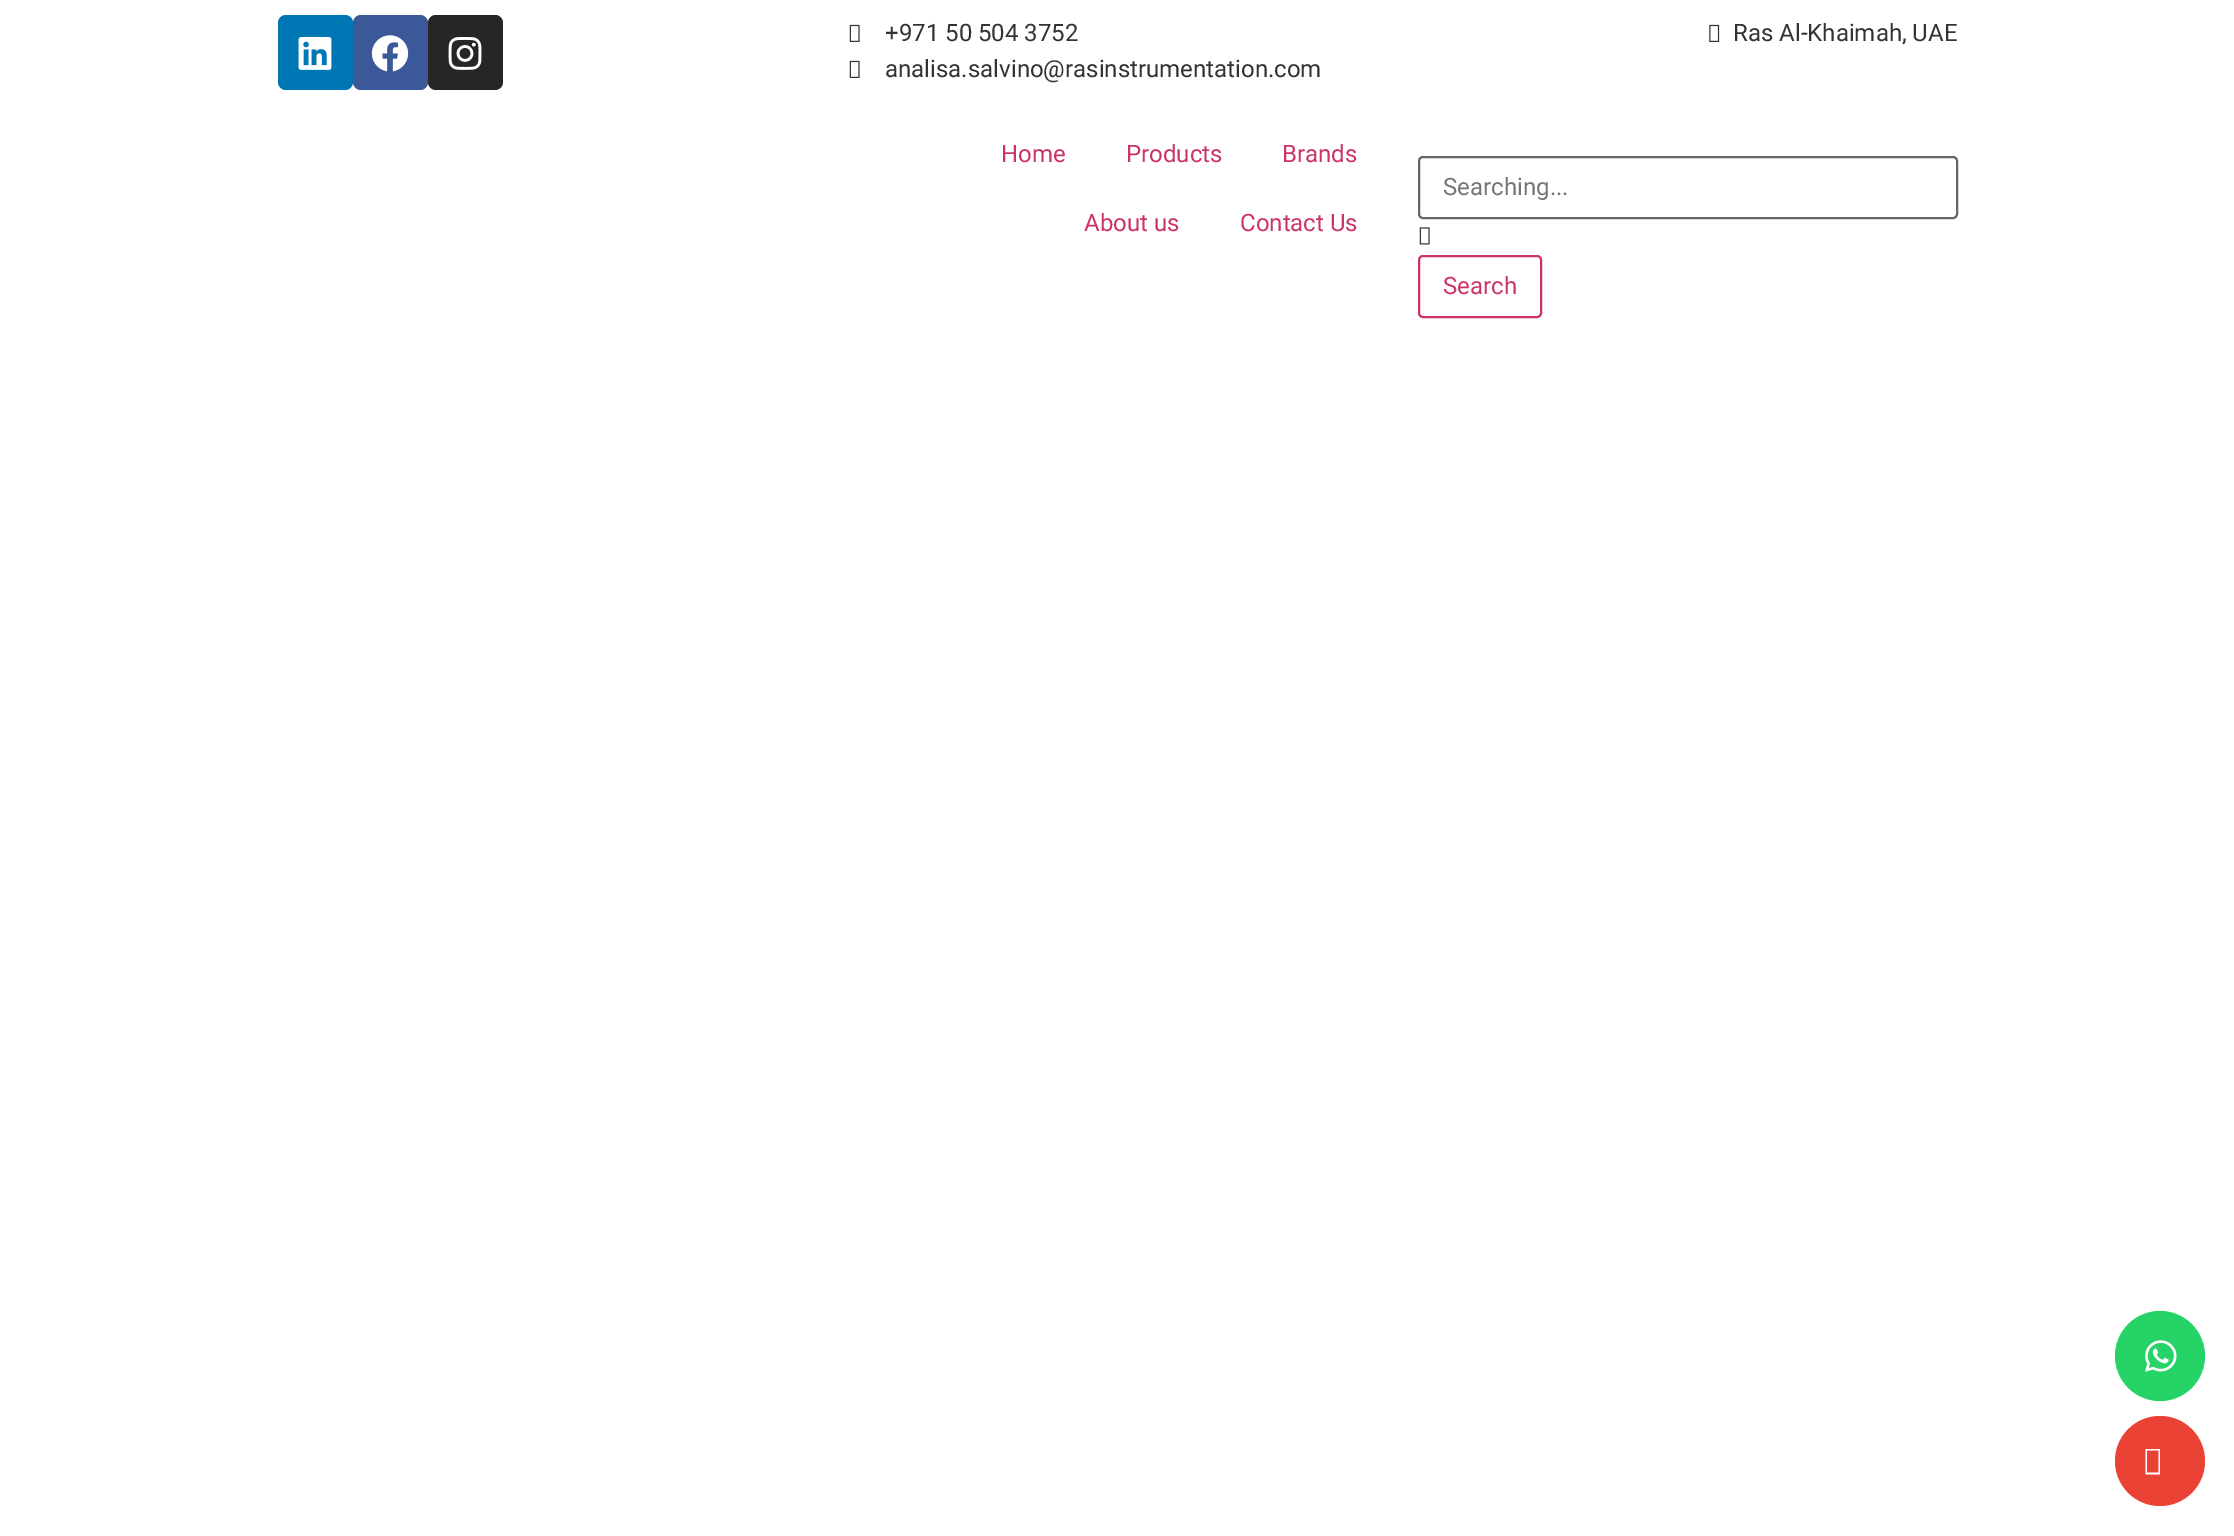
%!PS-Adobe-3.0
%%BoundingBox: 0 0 2234 1536
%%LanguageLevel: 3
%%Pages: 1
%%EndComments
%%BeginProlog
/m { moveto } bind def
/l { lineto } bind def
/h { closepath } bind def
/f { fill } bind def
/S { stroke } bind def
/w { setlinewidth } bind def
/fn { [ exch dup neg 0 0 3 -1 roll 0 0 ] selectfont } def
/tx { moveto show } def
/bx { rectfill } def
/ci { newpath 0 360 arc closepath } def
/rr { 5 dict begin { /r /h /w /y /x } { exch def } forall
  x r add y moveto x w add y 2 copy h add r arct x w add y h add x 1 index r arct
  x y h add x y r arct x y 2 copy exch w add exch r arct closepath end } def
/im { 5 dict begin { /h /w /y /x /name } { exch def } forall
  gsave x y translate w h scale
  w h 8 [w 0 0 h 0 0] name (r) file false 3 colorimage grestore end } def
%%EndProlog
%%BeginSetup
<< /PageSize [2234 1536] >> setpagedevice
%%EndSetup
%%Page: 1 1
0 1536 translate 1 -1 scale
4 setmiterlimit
1 setgray
0 0 2234 1536 bx
0 0.467 0.71 setrgbcolor
278 15 75 75 8 rr f
(image0.raw) 298 37 34 33 im
0.231 0.349 0.596 setrgbcolor
353 15 75 75 8 rr f
(image1.raw) 371 35 38 37 im
0.149 setgray
428 15 75 75 8 rr f
(image2.raw) 448 37 34 33 im
(image3.raw) 849 24 11 18 im
/Roboto-Regular 24 fn
0.2 setgray
(+971 50 504 3752) 885 41 tx
(image3.raw) 849 60 11 18 im
(analisa.salvino@rasinstrumentation.com) 885 77 tx
(image4.raw) 1709 24 11 18 im
(Ras Al-Khaimah, UAE) 1733 41 tx
0.8 0.2 0.4 setrgbcolor
(Home) 1001 162 tx
(Products) 1126 162 tx
(Brands) 1282 162 tx
(About us) 1084 231 tx
(Contact Us) 1240 231 tx
0.4 setgray
2 w
1419 157 538 61 4 rr S
0.459 setgray
(Searching...) 1443 195 tx
(image5.raw) 1419 227 11 18 im
0.8 0.2 0.4 setrgbcolor
1419 256 122 61 4 rr S
(Search) 1443 294 tx
0.145 0.827 0.4 setrgbcolor
2160 1356 45 ci f
(image6.raw) 2145 1340 32 32 im
0.918 0.263 0.208 setrgbcolor
2160 1461 45 ci f
1 setgray
2145.5 1474.5 m 2145.5 1449 l 2160 1449 l 2160 1474.5 l h 2147 1472.5 m 2158.5 1472.5 l 2158.5 1450.5 l 2147 1450.5 l h f
showpage
%%EOF
